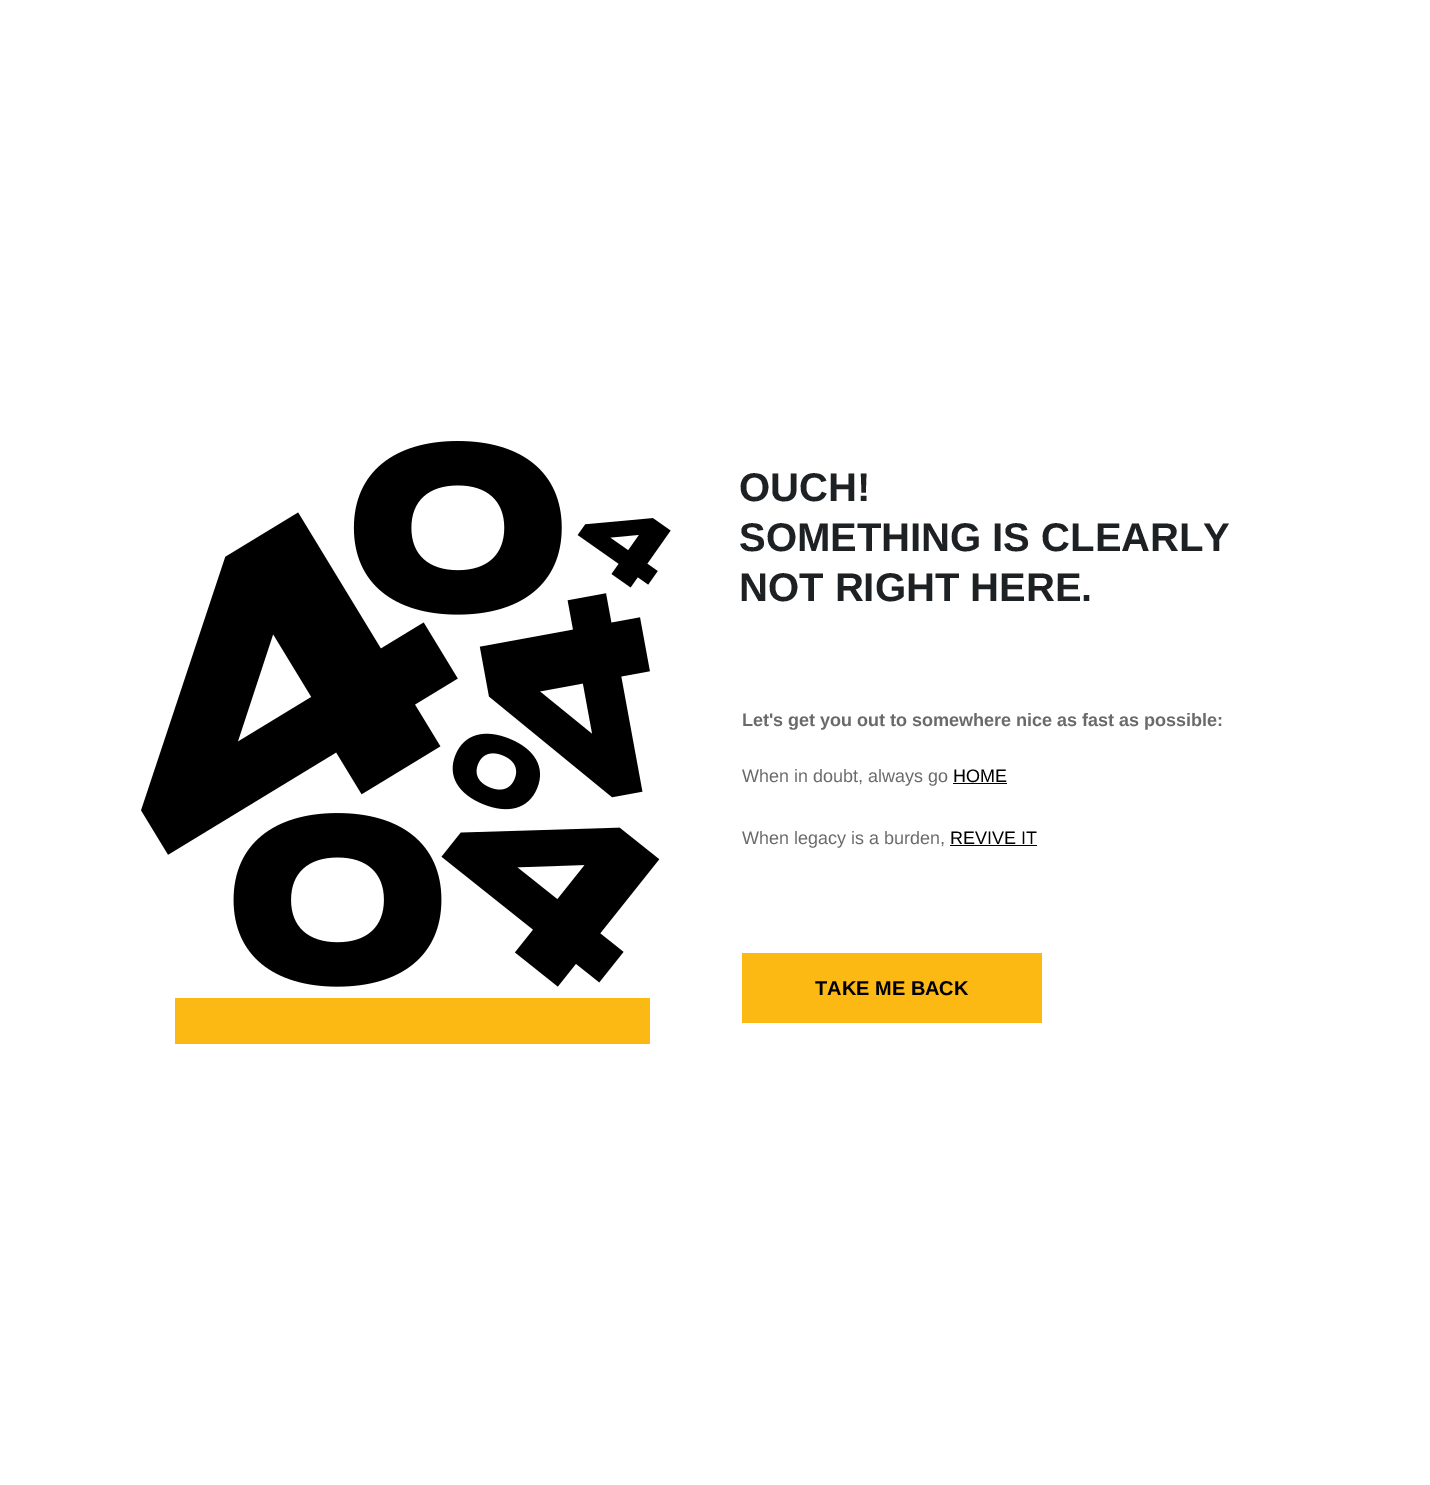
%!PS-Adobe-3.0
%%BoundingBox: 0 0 1430 1485
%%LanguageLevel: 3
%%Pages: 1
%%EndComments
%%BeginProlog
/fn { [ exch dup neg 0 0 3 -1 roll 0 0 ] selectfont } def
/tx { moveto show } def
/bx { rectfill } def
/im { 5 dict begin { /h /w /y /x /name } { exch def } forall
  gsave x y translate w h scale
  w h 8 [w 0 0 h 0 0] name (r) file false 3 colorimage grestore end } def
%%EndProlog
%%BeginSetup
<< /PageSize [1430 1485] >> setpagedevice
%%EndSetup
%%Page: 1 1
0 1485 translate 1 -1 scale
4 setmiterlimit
1 setgray
0 0 1430 1485 bx
(image0.raw) 141 441 530 603 im
/Arimo-Bold 40 fn
0.118 0.129 0.141 setrgbcolor
(OUCH!) 739 501 tx
(SOMETHING IS CLEARLY) 739 551 tx
(NOT RIGHT HERE.) 739 601 tx
/Arimo-Bold 18 fn
0.416 setgray
(Let's get you out to somewhere nice as fast as possible:) 742 726 tx
/Arimo-Regular 18 fn
(When in doubt, always go) 742 782 tx
0 setgray
(HOME) 953 782 tx
953 783 54 1 bx
0.416 setgray
(When legacy is a burden,) 742 844 tx
0 setgray
(REVIVE IT) 950 844 tx
950 845 87 1 bx
0.992 0.725 0.075 setrgbcolor
742 953 300 70 bx
/LiberationSans-Bold 20 fn
0 setgray
(TAKE ME BACK) 815 995 tx
showpage
%%EOF
